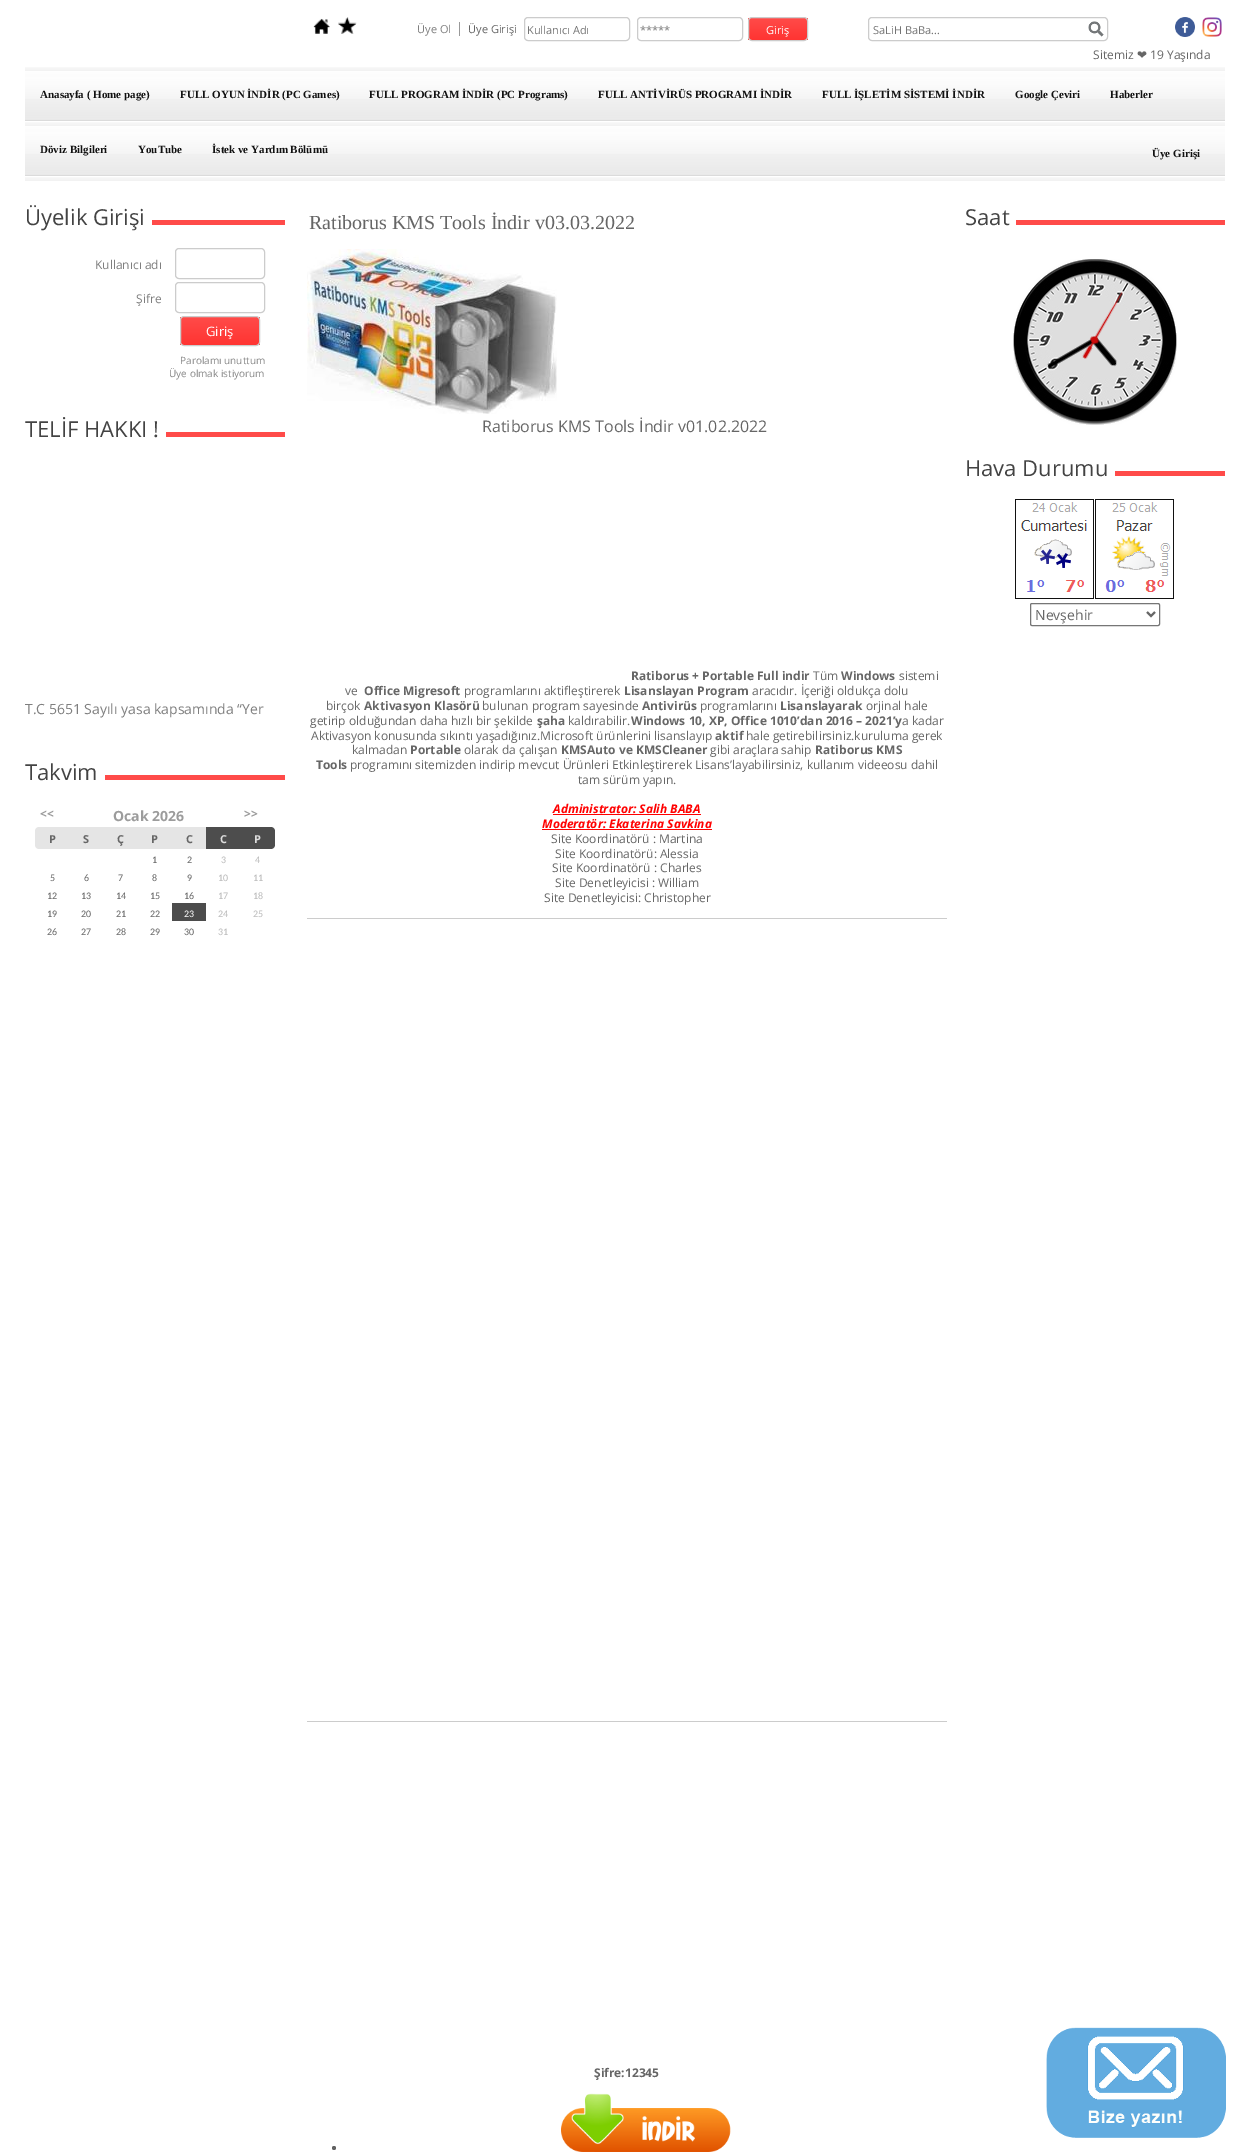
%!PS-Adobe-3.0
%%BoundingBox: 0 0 1240 2153
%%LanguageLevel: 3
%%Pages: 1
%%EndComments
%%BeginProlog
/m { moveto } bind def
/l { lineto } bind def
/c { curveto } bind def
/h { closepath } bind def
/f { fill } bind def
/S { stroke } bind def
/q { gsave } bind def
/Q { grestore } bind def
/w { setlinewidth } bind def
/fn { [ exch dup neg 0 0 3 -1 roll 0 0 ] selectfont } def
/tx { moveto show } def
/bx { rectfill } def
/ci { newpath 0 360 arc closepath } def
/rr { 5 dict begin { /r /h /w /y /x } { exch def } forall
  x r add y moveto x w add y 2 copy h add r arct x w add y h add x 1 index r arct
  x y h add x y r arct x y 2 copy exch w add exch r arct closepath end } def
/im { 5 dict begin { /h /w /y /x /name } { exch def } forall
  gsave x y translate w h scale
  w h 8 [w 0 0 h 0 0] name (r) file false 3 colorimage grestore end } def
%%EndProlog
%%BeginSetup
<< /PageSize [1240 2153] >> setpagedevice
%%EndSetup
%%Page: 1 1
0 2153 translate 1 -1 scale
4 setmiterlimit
1 setgray
0 0 1240 2153 bx
(image0.raw) 313 18 17 16 im
(image1.raw) 338 17 19 17 im
0.6 setgray
459 22 1 14 bx
/OpenSans-Regular 11 fn
0.498 setgray
(Üye Ol) 417 33 tx
0.4 setgray
(Üye Girişi) 468 33 tx
0.8 setgray
524.5 17.5 105 23 3.5 rr S
0.459 setgray
(Kullanıcı Adı) 527 34 tx
0.8 setgray
637.5 17.5 105 23 3.5 rr S
0.459 setgray
(*****) 640 34 tx
q
748 17 60 24 4 rr clip newpath
q 748 18 m 808 18 l 808 40 l 748 40 l h clip newpath
<< /ShadingType 2 /ColorSpace /DeviceRGB /Coords [778 18 778 40] /Extend [true true] /Function << /FunctionType 2 /Domain [0 1] /C0 [1 0.294 0.286] /C1 [1 0.204 0.196] /N 1 >> >> shfill Q
Q
0.8 setgray
748.5 17.5 59 23 3.5 rr S
1 setgray
(Giriş) 766 34 tx
0.8 setgray
868.5 17.5 239 23 3.5 rr S
0.459 setgray
(SaLiH BaBa...) 873 34 tx
(image2.raw) 1088 21 16 16 im
(image3.raw) 1175 17 20 20 im
(image4.raw) 1202 17 20 20 im
/OpenSans-Regular 12 fn
0.4 setgray
(Sitemiz) 1093 59 tx
/DejaVuSans-Regular 12 fn
(❤) 1137 59 tx
/OpenSans-Regular 12 fn
(19 Yaşında) 1150 59 tx
(image5.raw) 25 67 1200 114 im
/LiberationSerif-Bold 11 fn
0.067 setgray
(Anasayfa \( Home page\)) 40 98 tx
(FULL OYUN İNDİR \(PC Games\)) 180 98 tx
(FULL PROGRAM İNDİR \(PC Programs\)) 369 98 tx
(FULL ANTİVİRÜS PROGRAMI İNDİR) 598 98 tx
(FULL İŞLETİM SİSTEMİ İNDİR) 822 98 tx
(Google Çeviri) 1015 98 tx
(Haberler) 1110 98 tx
(Döviz Bilgileri) 40 153 tx
(YouTube) 138 153 tx
(İstek ve Yardım Bölümü) 212 153 tx
(Üye Girişi) 1152 157 tx
/OpenSans-Regular 22 fn
0.263 setgray
(Üyelik Girişi) 25 225 tx
1 0.294 0.286 setrgbcolor
152 220 133 5 bx
/OpenSans-Regular 12 fn
0.498 setgray
(Kullanıcı adı) 95 269 tx
0.8 setgray
175.5 248.5 89 30 3.5 rr S
0.498 setgray
(Şifre) 136 303 tx
0.8 setgray
175.5 282.5 89 30 3.5 rr S
q
180 316 80 30 4 rr clip newpath
q 180 317 m 260 317 l 260 345 l 180 345 l h clip newpath
<< /ShadingType 2 /ColorSpace /DeviceRGB /Coords [220 317 220 345] /Extend [true true] /Function << /FunctionType 2 /Domain [0 1] /C0 [1 0.294 0.286] /C1 [1 0.204 0.196] /N 1 >> >> shfill Q
Q
180.5 316.5 79 29 3.5 rr S
/OpenSans-Regular 13 fn
1 setgray
(Giriş) 206 336 tx
/OpenSans-Regular 10 fn
0.533 setgray
(Parolamı unuttum) 180 364 tx
(Üye olmak istiyorum) 169 377 tx
/OpenSans-Regular 22 fn
0.263 setgray
(TELİF HAKKI !) 25 437 tx
1 0.294 0.286 setrgbcolor
166 432 119 5 bx
/OpenSans-Regular 14 fn
0.498 setgray
(T.C 5651 Sayılı yasa kapsamında “Yer) 25 714 tx
/OpenSans-Regular 22 fn
0.263 setgray
(Takvim) 25 780 tx
1 0.294 0.286 setrgbcolor
105 775 180 5 bx
/OpenSans-Bold 12 fn
0.612 setgray
(<<) 40 818 tx
/OpenSans-Bold 14 fn
(Ocak 2026) 113 821 tx
/OpenSans-Bold 12 fn
(>>) 244 818 tx
0.898 setgray
39 827 m 69 827 l 69 849 l 39 849 l 37 849 35 847 35 845 c 35 831 l 35 829 37 827 39 827 c h f
/OpenSans-Bold 11 fn
0.4 setgray
(P) 49 843 tx
0.898 setgray
69 827 137 22 bx
0.4 setgray
(S) 83 843 tx
(Ç) 117 843 tx
(P) 151 843 tx
(C) 186 843 tx
0.302 setgray
206 827 35 22 bx
0.867 setgray
(C) 220 843 tx
0.302 setgray
241 827 m 271 827 l 273 827 275 829 275 831 c 275 845 l 275 847 273 849 271 849 c 241 849 l h f
0.867 setgray
(P) 254 843 tx
/Carlito-Regular 10 fn
0.4 setgray
(1) 152 863 tx
(2) 187 863 tx
0.733 setgray
(3) 221 863 tx
(4) 255 863 tx
0.4 setgray
(5) 50 881 tx
(6) 84 881 tx
(7) 118 881 tx
(8) 152 881 tx
(9) 187 881 tx
0.733 setgray
(10) 218 881 tx
(11) 253 881 tx
0.4 setgray
(12) 47 899 tx
(13) 81 899 tx
(14) 116 899 tx
(15) 150 899 tx
(16) 184 899 tx
0.733 setgray
(17) 218 899 tx
(18) 253 899 tx
0.4 setgray
(19) 47 917 tx
(20) 81 917 tx
(21) 116 917 tx
(22) 150 917 tx
0.298 setgray
172 903 34 18 bx
1 setgray
(23) 184 917 tx
0.733 setgray
(24) 218 917 tx
(25) 253 917 tx
0.4 setgray
(26) 47 935 tx
(27) 81 935 tx
(28) 116 935 tx
(29) 150 935 tx
(30) 184 935 tx
0.733 setgray
(31) 218 935 tx
/LiberationSerif-Regular 20 fn
0.4 setgray
(Ratiborus KMS Tools İndir v03.03.2022) 309 229 tx
(image6.raw) 307 249 250 165 im
/OpenSans-Regular 16 fn
(Ratiborus KMS Tools İndir v01.02.2022) 482 432 tx
/OpenSans-Bold 12 fn
(Ratiborus + Portable Full indir) 631 680 tx
/OpenSans-Regular 12 fn
(Tüm) 813 680 tx
/OpenSans-Bold 12 fn
(Windows) 841 680 tx
/OpenSans-Regular 12 fn
(sistemi) 899 680 tx
(ve) 345 695 tx
/OpenSans-Bold 12 fn
(Office Migresoft) 364 695 tx
/OpenSans-Regular 12 fn
(programlarını aktifleştirerek) 464 695 tx
/OpenSans-Bold 12 fn
(Lisanslayan Program) 624 695 tx
/OpenSans-Regular 12 fn
(aracıdır. İçeriği oldukça dolu) 752 695 tx
(birçok) 326 710 tx
/OpenSans-Bold 12 fn
(Aktivasyon Klasörü) 364 710 tx
/OpenSans-Regular 12 fn
(bulunan program sayesinde) 482 710 tx
/OpenSans-Bold 12 fn
(Antivirüs) 642 710 tx
/OpenSans-Regular 12 fn
(programlarını) 700 710 tx
/OpenSans-Bold 12 fn
(Lisanslayarak) 780 710 tx
/OpenSans-Regular 12 fn
(orjinal hale) 866 710 tx
(getirip olduğundan daha hızlı bir şekilde) 310 725 tx
/OpenSans-Bold 12 fn
(şaha) 537 725 tx
/OpenSans-Regular 12 fn
(kaldırabilir.) 568 725 tx
/OpenSans-Bold 12 fn
(Windows 10, XP, Office 1010’dan 2016 – 2021’y) 631 725 tx
/OpenSans-Regular 12 fn
(a kadar) 902 725 tx
(Aktivasyon konusunda sıkıntı yaşadığınız.Microsoft ürünlerini lisanslayıp) 311 740 tx
/OpenSans-Bold 12 fn
(aktif) 715 740 tx
/OpenSans-Regular 12 fn
(hale getirebilirsiniz.kuruluma gerek) 746 740 tx
(kalmadan) 352 754 tx
/OpenSans-Bold 12 fn
(Portable) 410 754 tx
/OpenSans-Regular 12 fn
(olarak da çalışan) 464 754 tx
/OpenSans-Bold 12 fn
(KMSAuto ve KMSCleaner) 561 754 tx
/OpenSans-Regular 12 fn
(gibi araçlara sahip) 710 754 tx
/OpenSans-Bold 12 fn
(Ratiborus KMS) 815 754 tx
(Tools) 316 769 tx
/OpenSans-Regular 12 fn
(programını sitemizden indirip mevcut Ürünleri Etkinleştirerek Lisans’layabilirsiniz, kullanım videeosu dahil) 350 769 tx
(tam sürüm yapın.) 578 784 tx
/OpenSans-BoldItalic 12 fn
1 0 0 setrgbcolor
(Administrator: Salih BABA) 553 813 tx
553 814 148 1 bx
(Moderatör: Ekaterina Savkina) 542 828 tx
542 829 170 1 bx
/OpenSans-Regular 12 fn
0.4 setgray
(Site Koordinatörü : Martina) 551 843 tx
(Site Koordinatörü: Alessia) 555 858 tx
(Site Koordinatörü : Charles) 552 872 tx
(Site Denetleyicisi : William) 555 887 tx
(Site Denetleyicisi: Christopher) 544 902 tx
0.8 setgray
307 918 640 1 bx
307 1721 640 1 bx
/OpenSans-Bold 12 fn
0.4 setgray
(Şifre:12345) 594 2077 tx
0.388 setgray
334 2148 2 ci f
(image7.raw) 561 2093 170 59 im
/OpenSans-Regular 22 fn
0.263 setgray
(Saat) 965 225 tx
1 0.294 0.286 setrgbcolor
1016 220 209 5 bx
(image8.raw) 1013 259 164 166 im
(image11.raw) 1091 336 26 31 im
(image10.raw) 1047 337 49 32 im
(image9.raw) 1082 292 41 67 im
0.263 setgray
(Hava Durumu) 965 476 tx
1 0.294 0.286 setrgbcolor
1115 471 110 5 bx
(image12.raw) 1015 499 159 100 im
0.463 setgray
1030.5 603.5 129 22 1.5 rr S
0.4 setgray
2 w
1147 612 m 1151 616 l 1155 612 l S
/OpenSans-Regular 14 fn
(Nevşehir) 1035 620 tx
(image13.raw) 1046 2027 180 111 im
showpage
%%EOF
